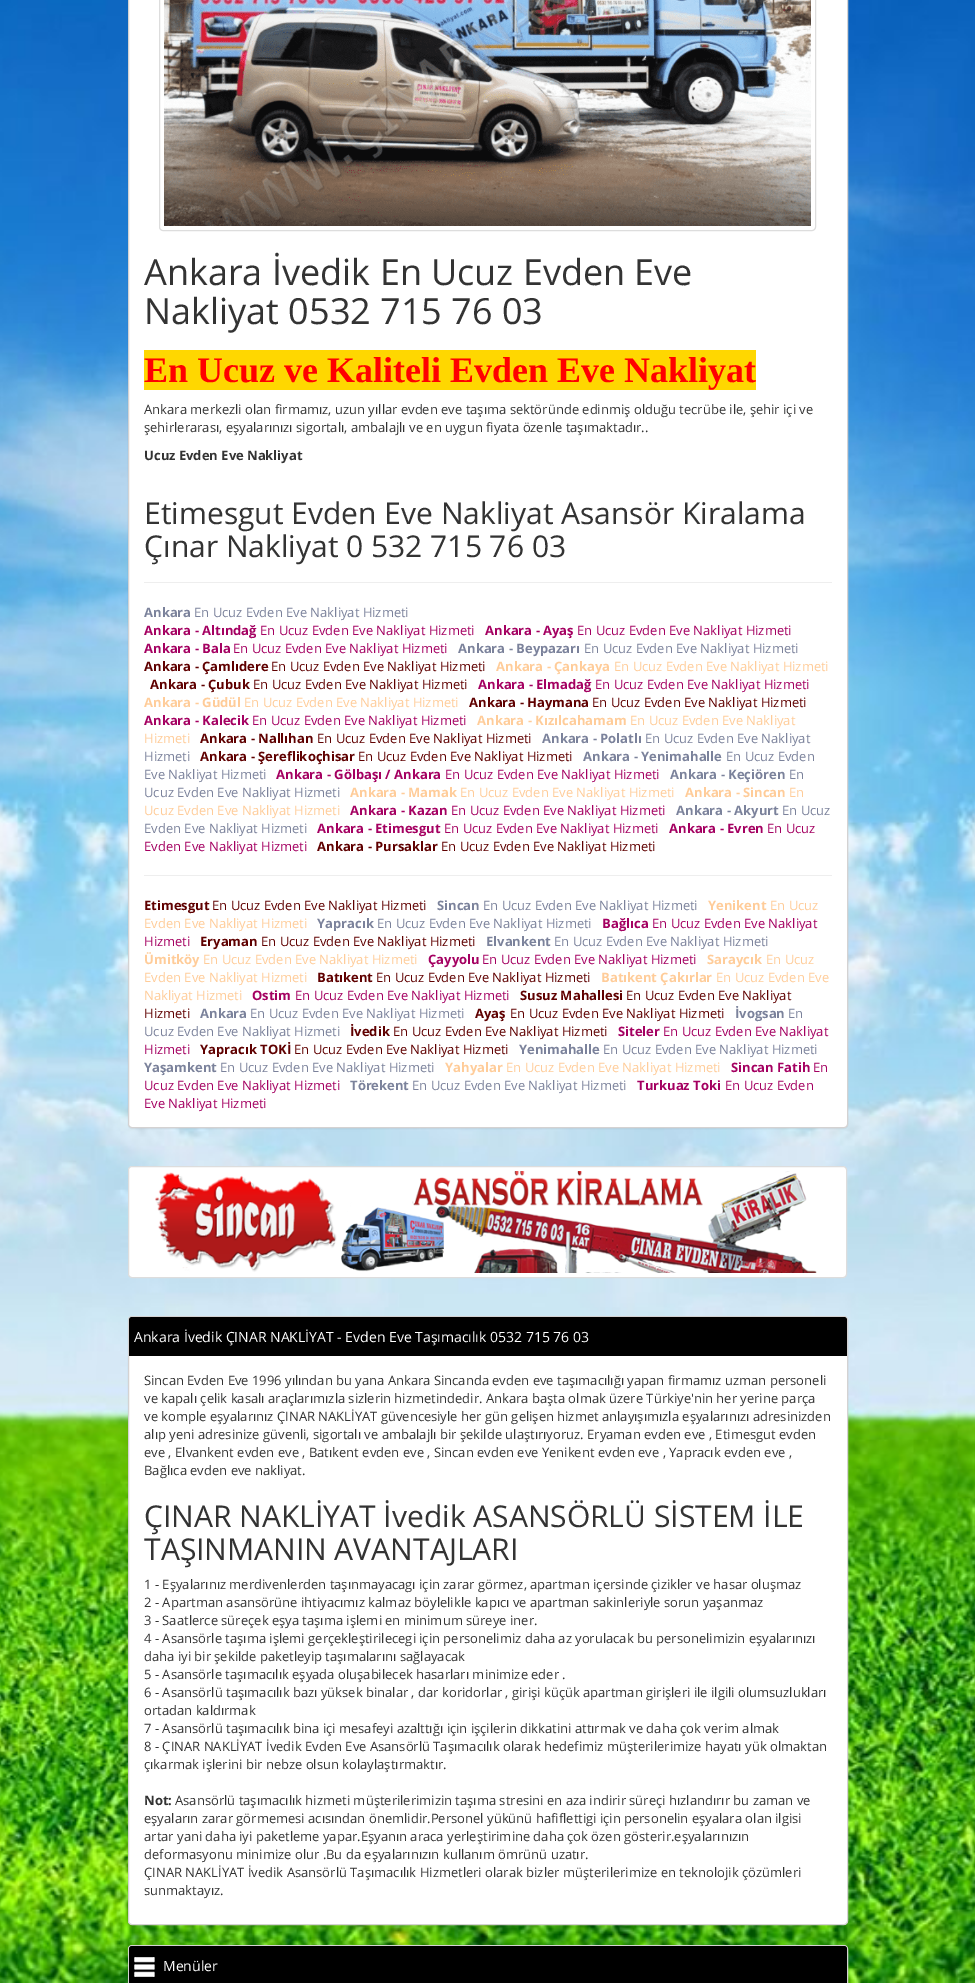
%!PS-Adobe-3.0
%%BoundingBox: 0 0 975 1983
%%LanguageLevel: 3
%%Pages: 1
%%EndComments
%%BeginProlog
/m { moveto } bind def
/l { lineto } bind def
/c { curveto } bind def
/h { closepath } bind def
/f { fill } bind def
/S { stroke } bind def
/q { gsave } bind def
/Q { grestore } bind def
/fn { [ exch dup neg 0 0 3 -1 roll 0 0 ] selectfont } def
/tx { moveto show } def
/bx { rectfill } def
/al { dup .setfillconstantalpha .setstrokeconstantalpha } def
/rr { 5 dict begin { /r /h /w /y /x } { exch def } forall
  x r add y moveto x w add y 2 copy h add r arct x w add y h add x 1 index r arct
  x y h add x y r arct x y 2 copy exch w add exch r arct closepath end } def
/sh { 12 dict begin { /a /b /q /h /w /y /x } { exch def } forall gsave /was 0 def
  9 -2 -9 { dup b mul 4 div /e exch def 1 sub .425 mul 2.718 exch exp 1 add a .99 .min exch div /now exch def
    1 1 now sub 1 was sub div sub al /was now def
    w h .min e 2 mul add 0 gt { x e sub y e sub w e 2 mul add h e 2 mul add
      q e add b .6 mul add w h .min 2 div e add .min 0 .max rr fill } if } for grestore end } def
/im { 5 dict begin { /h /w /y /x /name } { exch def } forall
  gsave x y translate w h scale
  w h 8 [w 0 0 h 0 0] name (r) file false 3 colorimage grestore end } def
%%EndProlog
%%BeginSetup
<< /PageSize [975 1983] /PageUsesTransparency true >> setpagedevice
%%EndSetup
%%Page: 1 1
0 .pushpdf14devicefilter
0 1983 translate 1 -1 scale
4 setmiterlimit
1 setgray
0 0 975 1983 bx
(image0.raw) 0 0 975 1983 im
0 setgray
128 -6 720 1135 4 0.5 0.05 sh
1 setgray
128.5 -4.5 719 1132 3.5 rr q f Q
0.831 0.824 0.824 setrgbcolor
S
0.867 setgray
159.5 -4.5 656 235 3.5 rr S
(image1.raw) 164 0 647 226 im
/OpenSans-Regular 36 fn
0.2 setgray
(Ankara İvedik En Ucuz Evden Eve) 144 285 tx
(Nakliyat 0532 715 76 03) 144 324 tx
1 0.843 0 setrgbcolor
144 350 612 40 bx
/LiberationSerif-Bold 36 fn
1 0 0 setrgbcolor
(En Ucuz ve Kaliteli Evden Eve Nakliyat) 144 382 tx
/OpenSans-Regular 13 fn
0.2 setgray
(Ankara merkezli olan firmamız, uzun yıllar evden eve taşıma sektöründe edinmiş olduğu tecrübe ile, şehir içi ve) 144 414 tx
(şehirlerarası, eşyalarınızı sigortalı, ambalajlı ve en uygun fiyata özenle taşımaktadır..) 144 432 tx
/OpenSans-Bold 13 fn
(Ucuz Evden Eve Nakliyat) 144 460 tx
/OpenSans-Regular 30 fn
(Etimesgut Evden Eve Nakliyat Asansör Kiralama) 144 524 tx
(Çınar Nakliyat 0 532 715 76 03) 144 557 tx
0.933 setgray
144 582 688 1 bx
/OpenSans-Bold 13 fn
0.482 0.51 0.608 setrgbcolor
(Ankara) 144 617 tx
/OpenSans-Regular 13 fn
(En Ucuz Evden Eve Nakliyat Hizmeti) 194 617 tx
/OpenSans-Bold 13 fn
0.643 0 0.38 setrgbcolor
(Ankara - Altındağ) 144 635 tx
/OpenSans-Regular 13 fn
(En Ucuz Evden Eve Nakliyat Hizmeti) 260 635 tx
/OpenSans-Bold 13 fn
(Ankara - Ayaş) 485 635 tx
/OpenSans-Regular 13 fn
(En Ucuz Evden Eve Nakliyat Hizmeti) 577 635 tx
/OpenSans-Bold 13 fn
(Ankara - Bala) 144 653 tx
/OpenSans-Regular 13 fn
(En Ucuz Evden Eve Nakliyat Hizmeti) 233 653 tx
/OpenSans-Bold 13 fn
0.482 0.51 0.608 setrgbcolor
(Ankara - Beypazarı) 458 653 tx
/OpenSans-Regular 13 fn
(En Ucuz Evden Eve Nakliyat Hizmeti) 584 653 tx
/OpenSans-Bold 13 fn
0.373 0 0 setrgbcolor
(Ankara - Çamlıdere) 144 671 tx
/OpenSans-Regular 13 fn
(En Ucuz Evden Eve Nakliyat Hizmeti) 271 671 tx
/OpenSans-Bold 13 fn
1 0.8 0.6 setrgbcolor
(Ankara - Çankaya) 496 671 tx
/OpenSans-Regular 13 fn
(En Ucuz Evden Eve Nakliyat Hizmeti) 614 671 tx
/OpenSans-Bold 13 fn
0.373 0 0 setrgbcolor
(Ankara - Çubuk) 150 689 tx
/OpenSans-Regular 13 fn
(En Ucuz Evden Eve Nakliyat Hizmeti) 253 689 tx
/OpenSans-Bold 13 fn
0.643 0 0.38 setrgbcolor
(Ankara - Elmadağ) 478 689 tx
/OpenSans-Regular 13 fn
(En Ucuz Evden Eve Nakliyat Hizmeti) 595 689 tx
/OpenSans-Bold 13 fn
1 0.8 0.6 setrgbcolor
(Ankara - Güdül) 144 707 tx
/OpenSans-Regular 13 fn
(En Ucuz Evden Eve Nakliyat Hizmeti) 244 707 tx
/OpenSans-Bold 13 fn
0.373 0 0 setrgbcolor
(Ankara - Haymana) 469 707 tx
/OpenSans-Regular 13 fn
(En Ucuz Evden Eve Nakliyat Hizmeti) 592 707 tx
/OpenSans-Bold 13 fn
0.643 0 0.38 setrgbcolor
(Ankara - Kalecik) 144 725 tx
/OpenSans-Regular 13 fn
(En Ucuz Evden Eve Nakliyat Hizmeti) 252 725 tx
/OpenSans-Bold 13 fn
1 0.8 0.6 setrgbcolor
(Ankara - Kızılcahamam) 477 725 tx
/OpenSans-Regular 13 fn
(En Ucuz Evden Eve Nakliyat) 630 725 tx
(Hizmeti) 144 743 tx
/OpenSans-Bold 13 fn
0.373 0 0 setrgbcolor
(Ankara - Nallıhan) 200 743 tx
/OpenSans-Regular 13 fn
(En Ucuz Evden Eve Nakliyat Hizmeti) 317 743 tx
/OpenSans-Bold 13 fn
0.482 0.51 0.608 setrgbcolor
(Ankara - Polatlı) 542 743 tx
/OpenSans-Regular 13 fn
(En Ucuz Evden Eve Nakliyat) 645 743 tx
(Hizmeti) 144 761 tx
/OpenSans-Bold 13 fn
0.373 0 0 setrgbcolor
(Ankara - Şereflikoçhisar) 200 761 tx
/OpenSans-Regular 13 fn
(En Ucuz Evden Eve Nakliyat Hizmeti) 358 761 tx
/OpenSans-Bold 13 fn
0.482 0.51 0.608 setrgbcolor
(Ankara - Yenimahalle) 583 761 tx
/OpenSans-Regular 13 fn
(En Ucuz Evden) 726 761 tx
(Eve Nakliyat Hizmeti) 144 779 tx
/OpenSans-Bold 13 fn
0.643 0 0.38 setrgbcolor
(Ankara - Gölbaşı / Ankara) 276 779 tx
/OpenSans-Regular 13 fn
(En Ucuz Evden Eve Nakliyat Hizmeti) 445 779 tx
/OpenSans-Bold 13 fn
0.482 0.51 0.608 setrgbcolor
(Ankara - Keçiören) 670 779 tx
/OpenSans-Regular 13 fn
(En) 789 779 tx
(Ucuz Evden Eve Nakliyat Hizmeti) 144 797 tx
/OpenSans-Bold 13 fn
1 0.8 0.6 setrgbcolor
(Ankara - Mamak) 350 797 tx
/OpenSans-Regular 13 fn
(En Ucuz Evden Eve Nakliyat Hizmeti) 460 797 tx
/OpenSans-Bold 13 fn
(Ankara - Sincan) 685 797 tx
/OpenSans-Regular 13 fn
(En) 789 797 tx
(Ucuz Evden Eve Nakliyat Hizmeti) 144 815 tx
/OpenSans-Bold 13 fn
0.643 0 0.38 setrgbcolor
(Ankara - Kazan) 350 815 tx
/OpenSans-Regular 13 fn
(En Ucuz Evden Eve Nakliyat Hizmeti) 451 815 tx
/OpenSans-Bold 13 fn
0.482 0.51 0.608 setrgbcolor
(Ankara - Akyurt) 676 815 tx
/OpenSans-Regular 13 fn
(En Ucuz) 782 815 tx
(Evden Eve Nakliyat Hizmeti) 144 833 tx
/OpenSans-Bold 13 fn
0.643 0 0.38 setrgbcolor
(Ankara - Etimesgut) 317 833 tx
/OpenSans-Regular 13 fn
(En Ucuz Evden Eve Nakliyat Hizmeti) 444 833 tx
/OpenSans-Bold 13 fn
(Ankara - Evren) 669 833 tx
/OpenSans-Regular 13 fn
(En Ucuz) 767 833 tx
(Evden Eve Nakliyat Hizmeti) 144 851 tx
/OpenSans-Bold 13 fn
0.373 0 0 setrgbcolor
(Ankara - Pursaklar) 317 851 tx
/OpenSans-Regular 13 fn
(En Ucuz Evden Eve Nakliyat Hizmeti) 441 851 tx
0.933 setgray
144 875 688 1 bx
/OpenSans-Bold 13 fn
0.373 0 0 setrgbcolor
(Etimesgut) 144 910 tx
/OpenSans-Regular 13 fn
(En Ucuz Evden Eve Nakliyat Hizmeti) 212 910 tx
/OpenSans-Bold 13 fn
0.482 0.51 0.608 setrgbcolor
(Sincan) 437 910 tx
/OpenSans-Regular 13 fn
(En Ucuz Evden Eve Nakliyat Hizmeti) 483 910 tx
/OpenSans-Bold 13 fn
1 0.8 0.6 setrgbcolor
(Yenikent) 708 910 tx
/OpenSans-Regular 13 fn
(En Ucuz) 770 910 tx
(Evden Eve Nakliyat Hizmeti) 144 928 tx
/OpenSans-Bold 13 fn
0.482 0.51 0.608 setrgbcolor
(Yapracık) 317 928 tx
/OpenSans-Regular 13 fn
(En Ucuz Evden Eve Nakliyat Hizmeti) 377 928 tx
/OpenSans-Bold 13 fn
0.643 0 0.38 setrgbcolor
(Bağlıca) 602 928 tx
/OpenSans-Regular 13 fn
(En Ucuz Evden Eve Nakliyat) 652 928 tx
(Hizmeti) 144 946 tx
/OpenSans-Bold 13 fn
0.373 0 0 setrgbcolor
(Eryaman) 200 946 tx
/OpenSans-Regular 13 fn
(En Ucuz Evden Eve Nakliyat Hizmeti) 261 946 tx
/OpenSans-Bold 13 fn
0.482 0.51 0.608 setrgbcolor
(Elvankent) 486 946 tx
/OpenSans-Regular 13 fn
(En Ucuz Evden Eve Nakliyat Hizmeti) 554 946 tx
/OpenSans-Bold 13 fn
1 0.8 0.6 setrgbcolor
(Ümitköy) 144 964 tx
/OpenSans-Regular 13 fn
(En Ucuz Evden Eve Nakliyat Hizmeti) 203 964 tx
/OpenSans-Bold 13 fn
0.643 0 0.38 setrgbcolor
(Çayyolu) 428 964 tx
/OpenSans-Regular 13 fn
(En Ucuz Evden Eve Nakliyat Hizmeti) 482 964 tx
/OpenSans-Bold 13 fn
1 0.8 0.6 setrgbcolor
(Saraycık) 707 964 tx
/OpenSans-Regular 13 fn
(En Ucuz) 766 964 tx
(Evden Eve Nakliyat Hizmeti) 144 982 tx
/OpenSans-Bold 13 fn
0.373 0 0 setrgbcolor
(Batıkent) 317 982 tx
/OpenSans-Regular 13 fn
(En Ucuz Evden Eve Nakliyat Hizmeti) 376 982 tx
/OpenSans-Bold 13 fn
1 0.8 0.6 setrgbcolor
(Batıkent Çakırlar) 601 982 tx
/OpenSans-Regular 13 fn
(En Ucuz Evden Eve) 716 982 tx
(Nakliyat Hizmeti) 144 1000 tx
/OpenSans-Bold 13 fn
0.643 0 0.38 setrgbcolor
(Ostim) 252 1000 tx
/OpenSans-Regular 13 fn
(En Ucuz Evden Eve Nakliyat Hizmeti) 295 1000 tx
/OpenSans-Bold 13 fn
0.373 0 0 setrgbcolor
(Susuz Mahallesi) 520 1000 tx
/OpenSans-Regular 13 fn
(En Ucuz Evden Eve Nakliyat) 626 1000 tx
(Hizmeti) 144 1018 tx
/OpenSans-Bold 13 fn
0.482 0.51 0.608 setrgbcolor
(Ankara) 200 1018 tx
/OpenSans-Regular 13 fn
(En Ucuz Evden Eve Nakliyat Hizmeti) 250 1018 tx
/OpenSans-Bold 13 fn
0.373 0 0 setrgbcolor
(Ayaş) 475 1018 tx
/OpenSans-Regular 13 fn
(En Ucuz Evden Eve Nakliyat Hizmeti) 510 1018 tx
/OpenSans-Bold 13 fn
0.482 0.51 0.608 setrgbcolor
(İvogsan) 735 1018 tx
/OpenSans-Regular 13 fn
(En) 788 1018 tx
(Ucuz Evden Eve Nakliyat Hizmeti) 144 1036 tx
/OpenSans-Bold 13 fn
0.373 0 0 setrgbcolor
(İvedik) 350 1036 tx
/OpenSans-Regular 13 fn
(En Ucuz Evden Eve Nakliyat Hizmeti) 393 1036 tx
/OpenSans-Bold 13 fn
0.643 0 0.38 setrgbcolor
(Siteler) 618 1036 tx
/OpenSans-Regular 13 fn
(En Ucuz Evden Eve Nakliyat) 663 1036 tx
(Hizmeti) 144 1054 tx
/OpenSans-Bold 13 fn
0.373 0 0 setrgbcolor
(Yapracık TOKİ) 200 1054 tx
/OpenSans-Regular 13 fn
(En Ucuz Evden Eve Nakliyat Hizmeti) 294 1054 tx
/OpenSans-Bold 13 fn
0.482 0.51 0.608 setrgbcolor
(Yenimahalle) 519 1054 tx
/OpenSans-Regular 13 fn
(En Ucuz Evden Eve Nakliyat Hizmeti) 603 1054 tx
/OpenSans-Bold 13 fn
(Yaşamkent) 144 1072 tx
/OpenSans-Regular 13 fn
(En Ucuz Evden Eve Nakliyat Hizmeti) 220 1072 tx
/OpenSans-Bold 13 fn
1 0.8 0.6 setrgbcolor
(Yahyalar) 445 1072 tx
/OpenSans-Regular 13 fn
(En Ucuz Evden Eve Nakliyat Hizmeti) 506 1072 tx
/OpenSans-Bold 13 fn
0.643 0 0.38 setrgbcolor
(Sincan Fatih) 731 1072 tx
/OpenSans-Regular 13 fn
(En) 813 1072 tx
(Ucuz Evden Eve Nakliyat Hizmeti) 144 1090 tx
/OpenSans-Bold 13 fn
0.482 0.51 0.608 setrgbcolor
(Törekent) 350 1090 tx
/OpenSans-Regular 13 fn
(En Ucuz Evden Eve Nakliyat Hizmeti) 412 1090 tx
/OpenSans-Bold 13 fn
0.643 0 0.38 setrgbcolor
(Turkuaz Toki) 637 1090 tx
/OpenSans-Regular 13 fn
(En Ucuz Evden) 725 1090 tx
(Eve Nakliyat Hizmeti) 144 1108 tx
1 setgray
128.5 1166.5 718 111 3.5 rr q f Q
0.867 setgray
S
(image2.raw) 155 1171 662 102 im
0 setgray
128 1317 720 609 4 0.5 0.05 sh
1 setgray
128.5 1316.5 719 608 3.5 rr q f Q
0.831 0.824 0.824 setrgbcolor
S
0 setgray
132 1317 m 844 1317 l 845.5 1317 847 1318.5 847 1320 c 847 1356 l 129 1356 l 129 1320 l 129 1318.5 130.5 1317 132 1317 c h f
/OpenSans-Regular 14 fn
1 setgray
(Ankara İvedik ÇINAR NAKLİYAT - Evden Eve Taşımacılık 0532 715 76 03) 134 1342 tx
/OpenSans-Regular 13 fn
0.2 setgray
(Sincan Evden Eve 1996 yılından bu yana Ankara Sincanda evden eve taşımacılığı yapan firmamız uzman personeli) 144 1385 tx
(ve kapalı çelik kasalı araçlarımızla sizlerin hizmetindedir. Ankara başta olmak üzere Türkiye'nin her yerine parça) 144 1403 tx
(ve komple eşyalarınız ÇINAR NAKLİYAT güvencesiyle her gün gelişen hizmet anlayışımızla eşyalarınızı adresinizden) 144 1421 tx
(alıp yeni adresinize güvenli, sigortalı ve ambalajlı bir şekilde ulaştırıyoruz. Eryaman evden eve , Etimesgut evden) 144 1439 tx
(eve , Elvankent evden eve , Batıkent evden eve , Sincan evden eve Yenikent evden eve , Yapracık evden eve ,) 144 1457 tx
(Bağlıca evden eve nakliyat.) 144 1475 tx
/OpenSans-Regular 30 fn
(ÇINAR NAKLİYAT İvedik ASANSÖRLÜ SİSTEM İLE) 144 1527 tx
(TAŞINMANIN AVANTAJLARI) 144 1560 tx
/OpenSans-Regular 13 fn
(1 - Eşyalarınız merdivenlerden taşınmayacagı için zarar görmez, apartman içersinde çizikler ve hasar oluşmaz) 144 1589 tx
(2 - Apartman asansörüne ihtiyacımız kalmaz böylelikle kapıcı ve apartman sakinleriyle sorun yaşanmaz) 144 1607 tx
(3 - Saatlerce süreçek eşya taşıma işlemi en minimum süreye iner.) 144 1625 tx
(4 - Asansörle taşıma işlemi gerçekleştirilecegi için personelimiz daha az yorulacak bu personelimizin eşyalarınızı) 144 1643 tx
(daha iyi bir şekilde paketleyip taşımalarını sağlayacak) 144 1661 tx
(5 - Asansörle taşımacılık eşyada oluşabilecek hasarları minimize eder .) 144 1679 tx
(6 - Asansörlü taşımacılık bazı yüksek binalar , dar koridorlar , girişi küçük apartman girişleri ile ilgili olumsuzlukları) 144 1697 tx
(ortadan kaldırmak) 144 1715 tx
(7 - Asansörlü taşımacılık bina içi mesafeyi azalttığı için işçilerin dikkatini attırmak ve daha çok verim almak) 144 1733 tx
(8 - ÇINAR NAKLİYAT İvedik Evden Eve Asansörlü Taşımacılık olarak hedefimiz müşterilerimize hayatı yük olmaktan) 144 1751 tx
(çıkarmak işlerini bir nebze olsun kolaylaştırmaktır.) 144 1769 tx
/OpenSans-Bold 13 fn
(Not:) 144 1805 tx
/OpenSans-Regular 13 fn
(Asansörlü taşımacılık hizmeti müşterilerimizin taşıma stresini en aza indirir süreçi hızlandırır bu zaman ve) 175 1805 tx
(eşyaların zarar görmemesi acısından önemlidir.Personel yükünü hafiflettigi için personelin eşyalara olan ilgisi) 144 1823 tx
(artar yani daha iyi paketleme yapar.Eşyanın araca yerleştirimine daha çok özen gösterir.eşyalarınızın) 144 1841 tx
(deformasyonu minimize olur .Bu da eşyalarınızın kullanım ömrünü uzatır.) 144 1859 tx
(ÇINAR NAKLİYAT İvedik Asansörlü Taşımacılık Hizmetleri olarak bizler müşterilerimize en teknolojik çözümleri) 144 1877 tx
(sunmaktayız.) 144 1895 tx
0.831 0.824 0.824 setrgbcolor
128.5 1945.5 719 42 3.5 rr S
0 setgray
132 1946 m 844 1946 l 845.5 1946 847 1947.5 847 1949 c 847 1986 l 129 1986 l 129 1949 l 129 1947.5 130.5 1946 132 1946 c h f
(image3.raw) 134 1957 21 20 im
/OpenSans-Regular 14 fn
1 setgray
(Menüler) 163 1971 tx
.poppdf14devicefilter showpage
%%EOF
